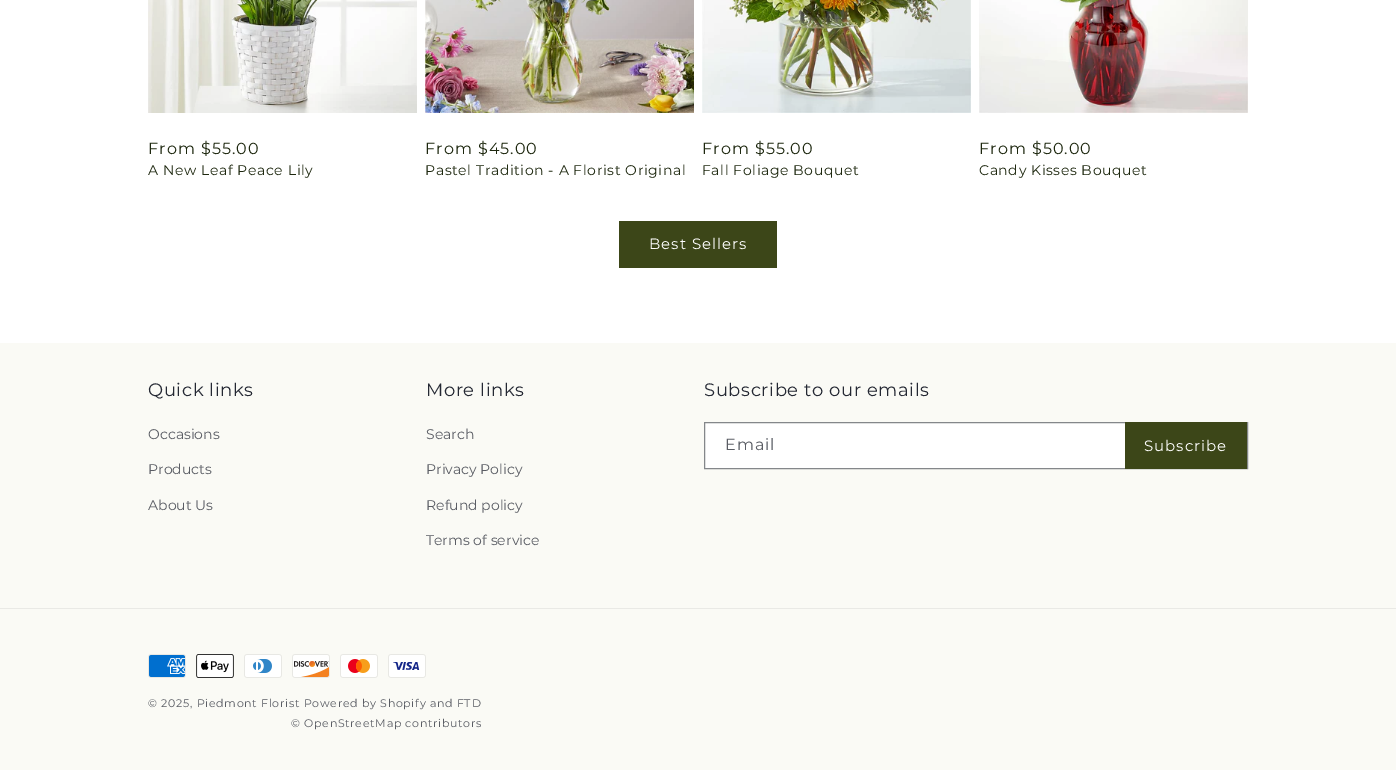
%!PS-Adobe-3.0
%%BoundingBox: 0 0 1396 770
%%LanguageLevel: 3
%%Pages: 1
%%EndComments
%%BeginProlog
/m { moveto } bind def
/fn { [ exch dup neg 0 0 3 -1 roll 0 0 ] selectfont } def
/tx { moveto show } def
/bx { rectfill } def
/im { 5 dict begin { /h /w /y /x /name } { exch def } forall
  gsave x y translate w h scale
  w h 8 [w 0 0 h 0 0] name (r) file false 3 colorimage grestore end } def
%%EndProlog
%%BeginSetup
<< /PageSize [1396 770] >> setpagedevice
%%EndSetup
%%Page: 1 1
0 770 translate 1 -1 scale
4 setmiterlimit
1 setgray
0 0 1396 770 bx
(image0.raw) 148 0 269 113 im
/Montserrat-Regular 16 fn
0.118 0.157 0.059 setrgbcolor
148 154 m 1 0 (From $55.00) ashow
/Montserrat-Regular 14 fn
148 175 m 0.6 0 (A New Leaf Peace Lily) ashow
(image1.raw) 425 0 269 113 im
/Montserrat-Regular 16 fn
425 154 m 1 0 (From $45.00) ashow
/Montserrat-Regular 14 fn
425 175 m 0.6 0 (Pastel Tradition - A Florist Original) ashow
(image2.raw) 702 0 269 113 im
/Montserrat-Regular 16 fn
702 154 m 1 0 (From $55.00) ashow
/Montserrat-Regular 14 fn
702 175 m 0.6 0 (Fall Foliage Bouquet) ashow
(image3.raw) 979 0 269 113 im
/Montserrat-Regular 16 fn
979 154 m 1 0 (From $50.00) ashow
/Montserrat-Regular 14 fn
979 175 m 0.6 0 (Candy Kisses Bouquet) ashow
0.235 0.275 0.094 setrgbcolor
619 221 158 47 bx
/Montserrat-Regular 15 fn
1 setgray
649 249 m 1 0 (Best Sellers) ashow
0.98 0.98 0.961 setrgbcolor
0 343 1396 427 bx
/Montserrat-Regular 18 fn
0.141 0.157 0.2 setrgbcolor
148 396 m 0.6 0 (Quick links) ashow
/Montserrat-Regular 14 fn
0.353 0.365 0.392 setrgbcolor
(Occasions) 148 439 tx
(Products) 148 474 tx
(About Us) 148 510 tx
/Montserrat-Regular 18 fn
0.141 0.157 0.2 setrgbcolor
426 396 m 0.6 0 (More links) ashow
/Montserrat-Regular 14 fn
0.353 0.365 0.392 setrgbcolor
(Search) 426 439 tx
(Privacy Policy) 426 474 tx
(Refund policy) 426 510 tx
(Terms of service) 426 545 tx
/Montserrat-Regular 18 fn
0.141 0.157 0.2 setrgbcolor
704 396 m 0.6 0 (Subscribe to our emails) ashow
1 setgray
705 423 420 45 bx
0.518 0.529 0.541 setrgbcolor
704.5 422.5 543 46 rectstroke
/Montserrat-Regular 16 fn
0.353 0.365 0.392 setrgbcolor
725 450 m 1 0 (Email) ashow
0.235 0.275 0.094 setrgbcolor
1125 422 122 47 bx
/Montserrat-Regular 15 fn
1 setgray
1144 451 m 1 0 (Subscribe) ashow
0.914 0.914 0.898 setrgbcolor
0 608 1396 1 bx
(image4.raw) 148 654 38 24 im
(image5.raw) 196 654 38 24 im
(image6.raw) 244 654 38 24 im
(image7.raw) 292 654 38 24 im
(image8.raw) 340 654 38 24 im
(image9.raw) 388 654 38 24 im
/Montserrat-Regular 11 fn
0.353 0.365 0.392 setrgbcolor
148 707 m 0.7 0 (© 2025, Piedmont Florist Powered by Shopify and FTD) ashow
291 727 m 0.7 0 (© OpenStreetMap contributors) ashow
showpage
%%EOF
